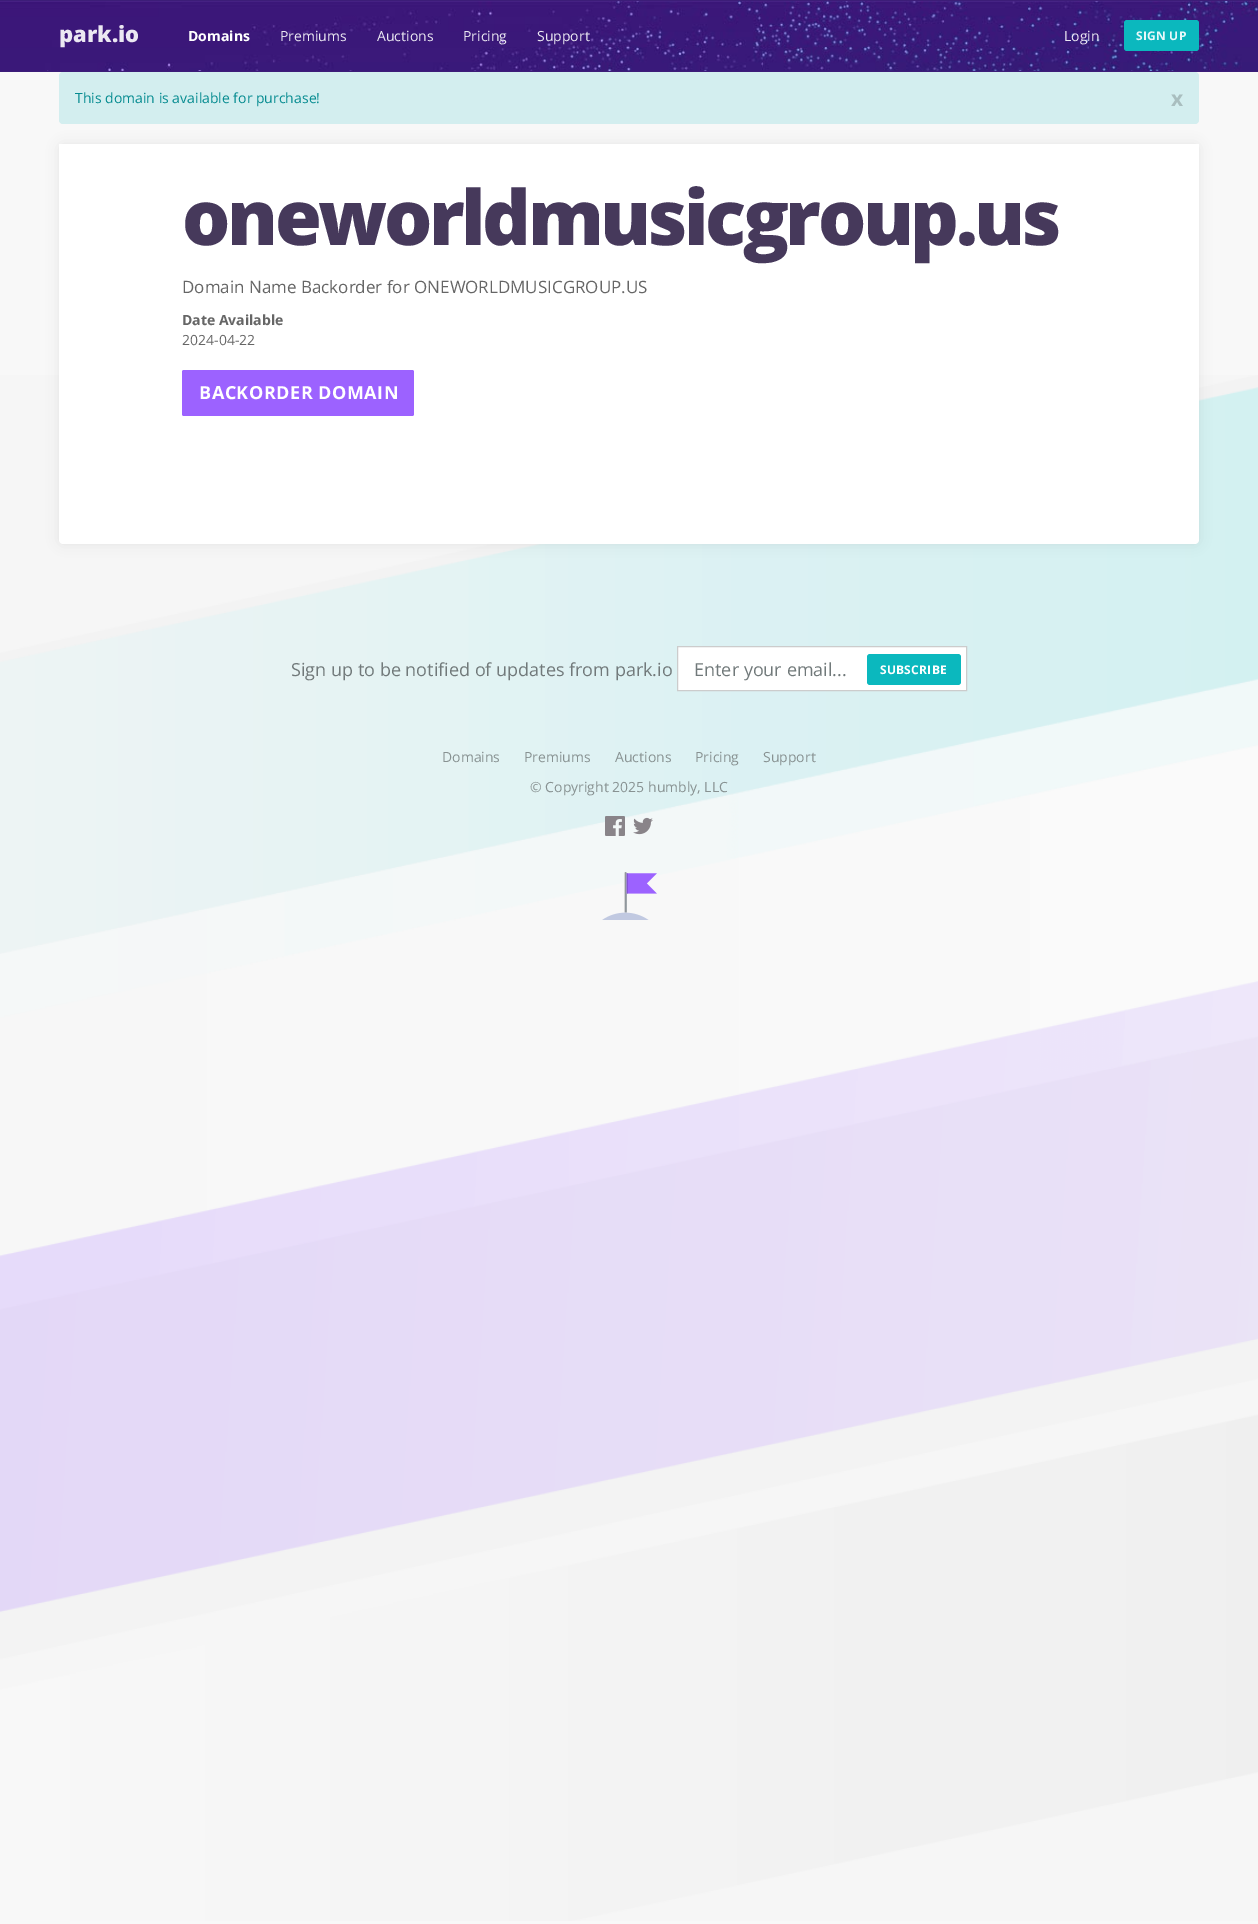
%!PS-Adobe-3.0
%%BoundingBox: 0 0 1258 1924
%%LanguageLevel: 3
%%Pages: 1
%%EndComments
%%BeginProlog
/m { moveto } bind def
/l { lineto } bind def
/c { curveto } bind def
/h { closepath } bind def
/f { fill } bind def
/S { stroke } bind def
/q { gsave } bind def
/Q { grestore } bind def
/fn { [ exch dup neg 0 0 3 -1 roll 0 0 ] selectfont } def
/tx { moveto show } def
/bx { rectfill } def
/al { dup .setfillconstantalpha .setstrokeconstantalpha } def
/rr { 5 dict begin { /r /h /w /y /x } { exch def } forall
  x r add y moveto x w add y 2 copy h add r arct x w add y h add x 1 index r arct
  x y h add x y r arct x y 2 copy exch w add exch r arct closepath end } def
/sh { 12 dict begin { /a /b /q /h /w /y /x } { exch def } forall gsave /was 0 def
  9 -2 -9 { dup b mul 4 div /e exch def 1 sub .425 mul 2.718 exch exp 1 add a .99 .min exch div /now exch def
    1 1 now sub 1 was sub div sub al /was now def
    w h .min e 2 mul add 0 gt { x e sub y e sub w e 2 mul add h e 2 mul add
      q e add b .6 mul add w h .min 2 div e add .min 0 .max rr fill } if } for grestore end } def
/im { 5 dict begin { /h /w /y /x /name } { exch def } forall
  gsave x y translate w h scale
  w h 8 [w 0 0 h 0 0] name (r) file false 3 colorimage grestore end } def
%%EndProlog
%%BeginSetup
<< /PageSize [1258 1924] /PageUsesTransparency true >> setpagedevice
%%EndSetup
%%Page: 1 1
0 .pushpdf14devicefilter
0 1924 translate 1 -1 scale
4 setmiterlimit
0.973 setgray
0 0 1258 1924 bx
(image0.raw) 0 375 1258 1546 im
0.235 0.114 0.471 setrgbcolor
0 0 1258 72 bx
(image1.raw) 0 1 1258 70 im
/OpenSans-ExtraBold 22 fn
0.922 0.91 0.949 setrgbcolor
(park.io) 59 42 tx
/OpenSans-Bold 14 fn
1 setgray
(Domains) 188 41 tx
/OpenSans-Regular 14 fn
0.922 0.91 0.949 setrgbcolor
(Premiums) 280 41 tx
(Auctions) 377 41 tx
(Pricing) 463 41 tx
(Support) 537 41 tx
(Login) 1064 41 tx
0.043 0.722 0.745 setrgbcolor
1124 20 75 31 3 rr f
/OpenSans-Bold 12 fn
0.906 0.973 0.976 setrgbcolor
1136 40 m 0.25 0 (SIGN UP) ashow
0.827 0.933 0.937 setrgbcolor
59 72 1140 52 4 rr f
/OpenSans-Regular 14 fn
0.02 0.545 0.565 setrgbcolor
(This domain is available for purchase!) 75 103 tx
/OpenSans-Bold 21 fn
0.663 0.745 0.749 setrgbcolor
(x) 1171 106 tx
0 setgray
59 144 1140 400 4 6 0.07 sh
1 setgray
59 144 m 1199 144 l 1199 540 l 1199 542 1197 544 1195 544 c 63 544 l 61 544 59 542 59 540 c h f
/OpenSans-ExtraBold 76 fn
0.275 0.224 0.357 setrgbcolor
182 245 m -3.4 0 (oneworldmusicgroup.us) ashow
/OpenSans-Regular 17 fn
0.4 setgray
(Domain Name Backorder for ONEWORLDMUSICGROUP.US) 182 293 tx
/OpenSans-Bold 14 fn
(Date Available) 182 325 tx
/OpenSans-Regular 14 fn
(2024-04-22) 182 345 tx
0.612 0.384 1 setrgbcolor
182 370 232 46 2 rr f
/OpenSans-Bold 18 fn
1 setgray
199 399 m 0.5 0 (BACKORDER DOMAIN) ashow
/OpenSans-Regular 18 fn
0.443 0.475 0.478 setrgbcolor
(Sign up to be notified of updates from park.io) 291 676 tx
1 setgray
677.5 646.5 m 966.5 646.5 l 966.5 690.5 l 677.5 690.5 l h q f Q
0.8 setgray
S
0.443 0.475 0.478 setrgbcolor
(Enter your email...) 694 676 tx
0.043 0.722 0.745 setrgbcolor
867 654 94 31 3 rr f
/OpenSans-Bold 12 fn
1 setgray
880 674 m 0.25 0 (SUBSCRIBE) ashow
/OpenSans-Regular 14 fn
0.533 0.573 0.573 setrgbcolor
(Domains) 442 762 tx
(Premiums) 524 762 tx
(Auctions) 615 762 tx
(Pricing) 695 762 tx
(Support) 763 762 tx
(© Copyright 2025) 530 792 tx
(humbly, LLC) 648 792 tx
(image2.raw) 605 816 20 20 im
(image3.raw) 633 817 20 18 im
(image4.raw) 602 872 55 48 im
.poppdf14devicefilter showpage
%%EOF
